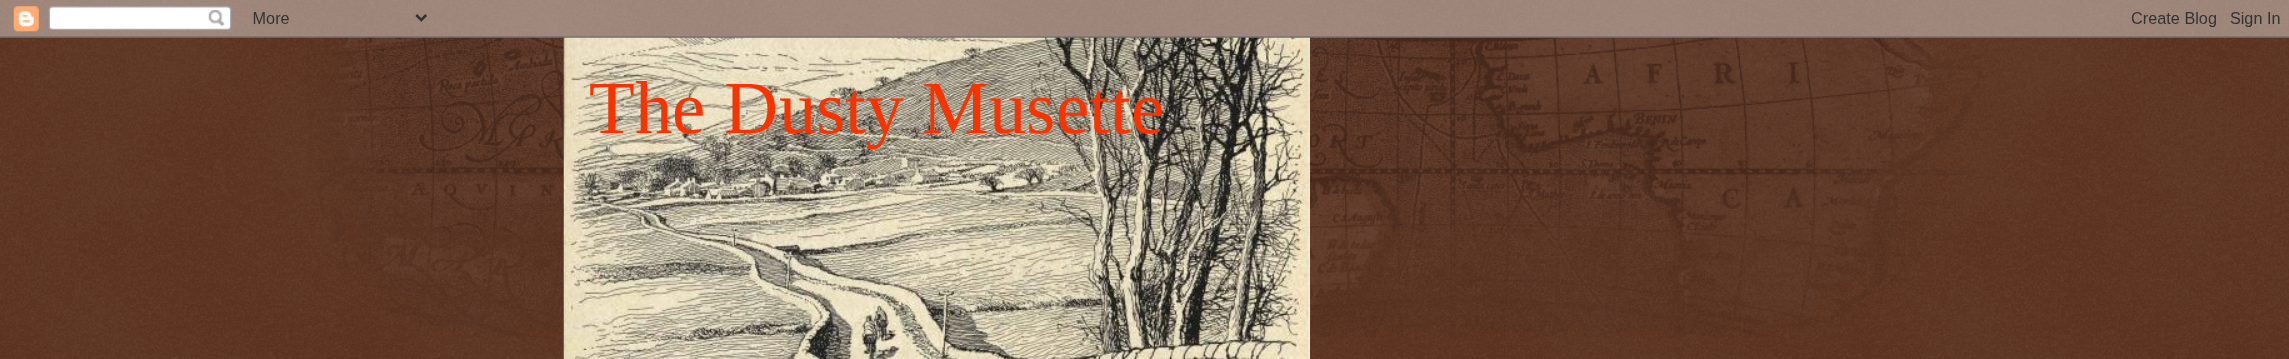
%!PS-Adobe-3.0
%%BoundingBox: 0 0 2289 359
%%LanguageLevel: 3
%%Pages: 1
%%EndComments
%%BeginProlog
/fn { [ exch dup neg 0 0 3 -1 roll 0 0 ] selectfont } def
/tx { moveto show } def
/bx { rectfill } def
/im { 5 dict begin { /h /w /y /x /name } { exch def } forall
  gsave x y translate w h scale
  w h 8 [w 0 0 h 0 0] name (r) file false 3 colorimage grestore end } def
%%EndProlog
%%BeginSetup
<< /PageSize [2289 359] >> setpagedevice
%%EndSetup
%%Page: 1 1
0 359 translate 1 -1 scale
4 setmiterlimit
0.267 0.082 0 setrgbcolor
0 0 2289 359 bx
(image0.raw) 0 0 2289 359 im
(image2.raw) 300 37 1690 300 im
(image3.raw) 563 37 747 322 im
(image1.raw) 0 0 2289 38 im
/LiberationSerif-Regular 75 fn
0.973 0.2 0 setrgbcolor
(The Dusty Musette) 589 133 tx
showpage
%%EOF
